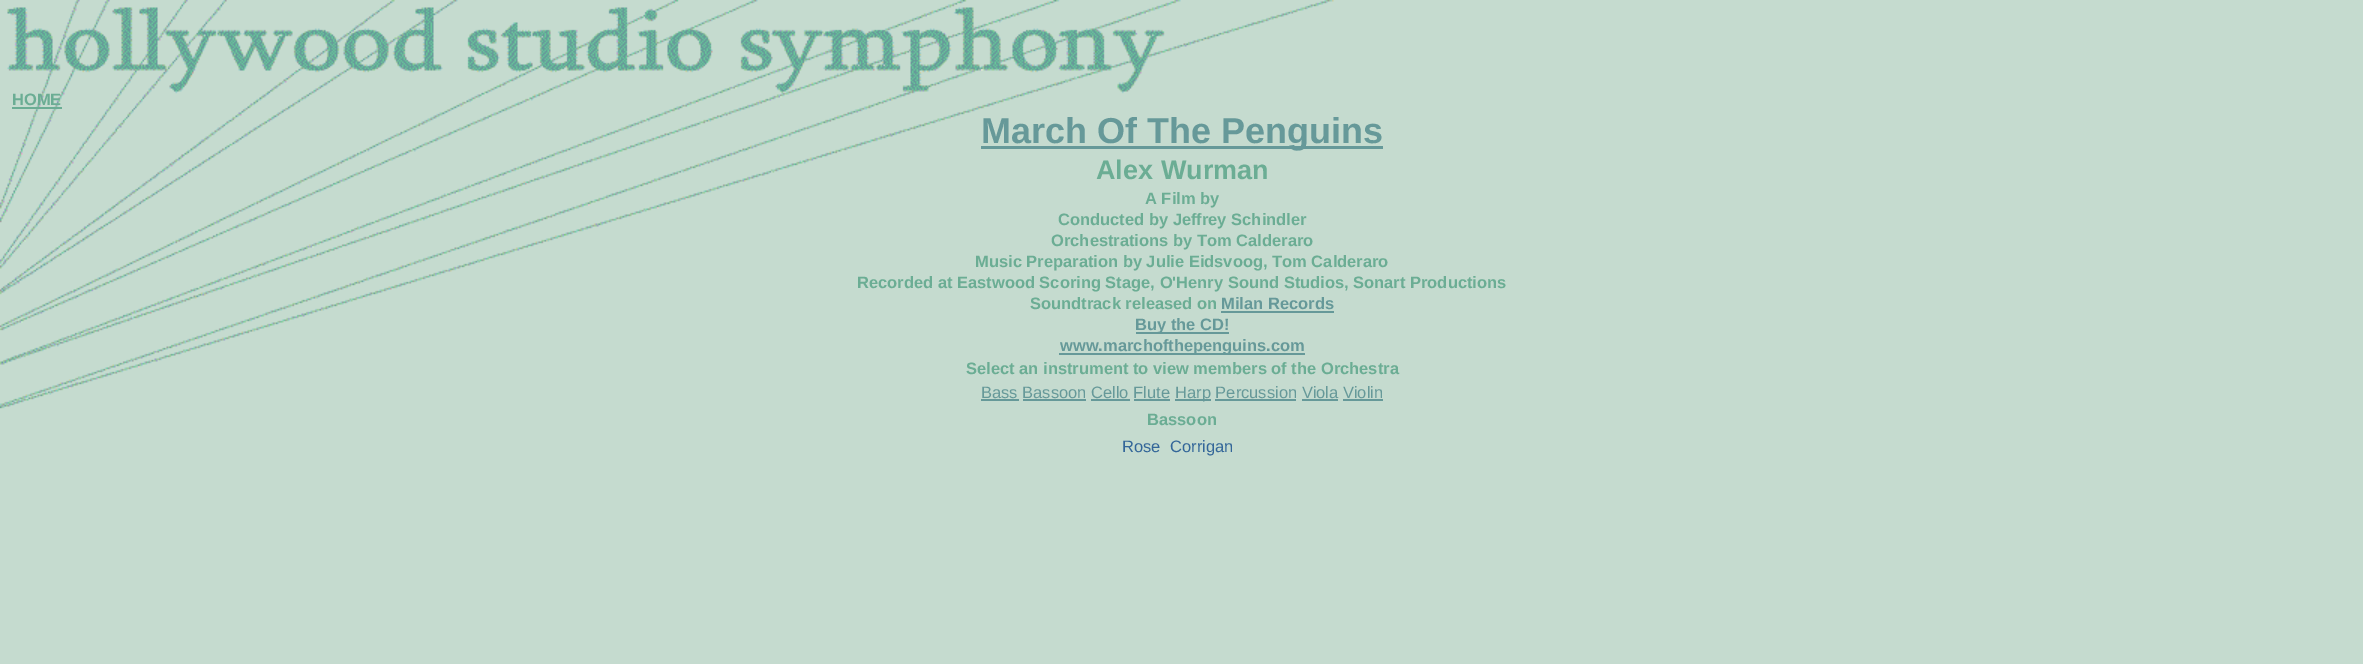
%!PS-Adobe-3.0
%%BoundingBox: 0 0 2363 664
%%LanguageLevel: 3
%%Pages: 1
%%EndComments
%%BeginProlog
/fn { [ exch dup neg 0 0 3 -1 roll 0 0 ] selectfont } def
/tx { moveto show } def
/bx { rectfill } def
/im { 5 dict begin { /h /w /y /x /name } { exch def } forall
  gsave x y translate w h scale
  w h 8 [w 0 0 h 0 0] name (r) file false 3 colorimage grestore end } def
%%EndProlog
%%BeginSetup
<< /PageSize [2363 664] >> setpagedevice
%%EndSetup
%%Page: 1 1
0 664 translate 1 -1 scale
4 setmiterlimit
0.773 0.859 0.812 setrgbcolor
0 0 2363 664 bx
(image0.raw) 0 0 1334 409 im
/LiberationSans-Bold 16.5 fn
0.42 0.678 0.58 setrgbcolor
(HOME) 12 105 tx
12 107 50 2 bx
0.4 0.6 0.6 setrgbcolor
981 146 402 3 bx
/LiberationSans-Bold 36 fn
(March Of The Penguins) 981 143 tx
/LiberationSans-Bold 27 fn
0.42 0.678 0.58 setrgbcolor
(Alex Wurman) 1096 179 tx
/LiberationSans-Bold 16.5 fn
(A Film by) 1145 204 tx
(Conducted by Jeffrey Schindler) 1058 225 tx
(Orchestrations by Tom Calderaro) 1051 246 tx
(Music Preparation by Julie Eidsvoog, Tom Calderaro) 975 267 tx
(Recorded at Eastwood Scoring Stage, O'Henry Sound Studios, Sonart Productions) 857 288 tx
(Soundtrack released on) 1030 309 tx
0.4 0.6 0.6 setrgbcolor
(Milan Records) 1221 309 tx
1221 311 113 2 bx
1136 332 93 2 bx
(Buy the CD!) 1135 330 tx
1059 353 246 2 bx
(www.marchofthepenguins.com) 1060 351 tx
0.42 0.678 0.58 setrgbcolor
(Select an instrument to view members of the Orchestra) 966 374 tx
/LiberationSans-Regular 16.5 fn
0.4 0.6 0.6 setrgbcolor
(Bass Bassoon Cello Flute) 981 398 tx
981 399 38 2 bx
1175 399 36 2 bx
(Harp Percussion Viola Violin) 1175 398 tx
1023 399 63 2 bx
1091 399 39 2 bx
1134 399 36 2 bx
1215 399 81 2 bx
1302 399 36 2 bx
1343 399 40 2 bx
/LiberationSans-Bold 16.5 fn
0.42 0.678 0.58 setrgbcolor
(Bassoon) 1147 425 tx
/LiberationSans-Regular 16.5 fn
0.2 0.4 0.6 setrgbcolor
(Rose) 1122 452 tx
(Corrigan) 1170 452 tx
showpage
%%EOF
